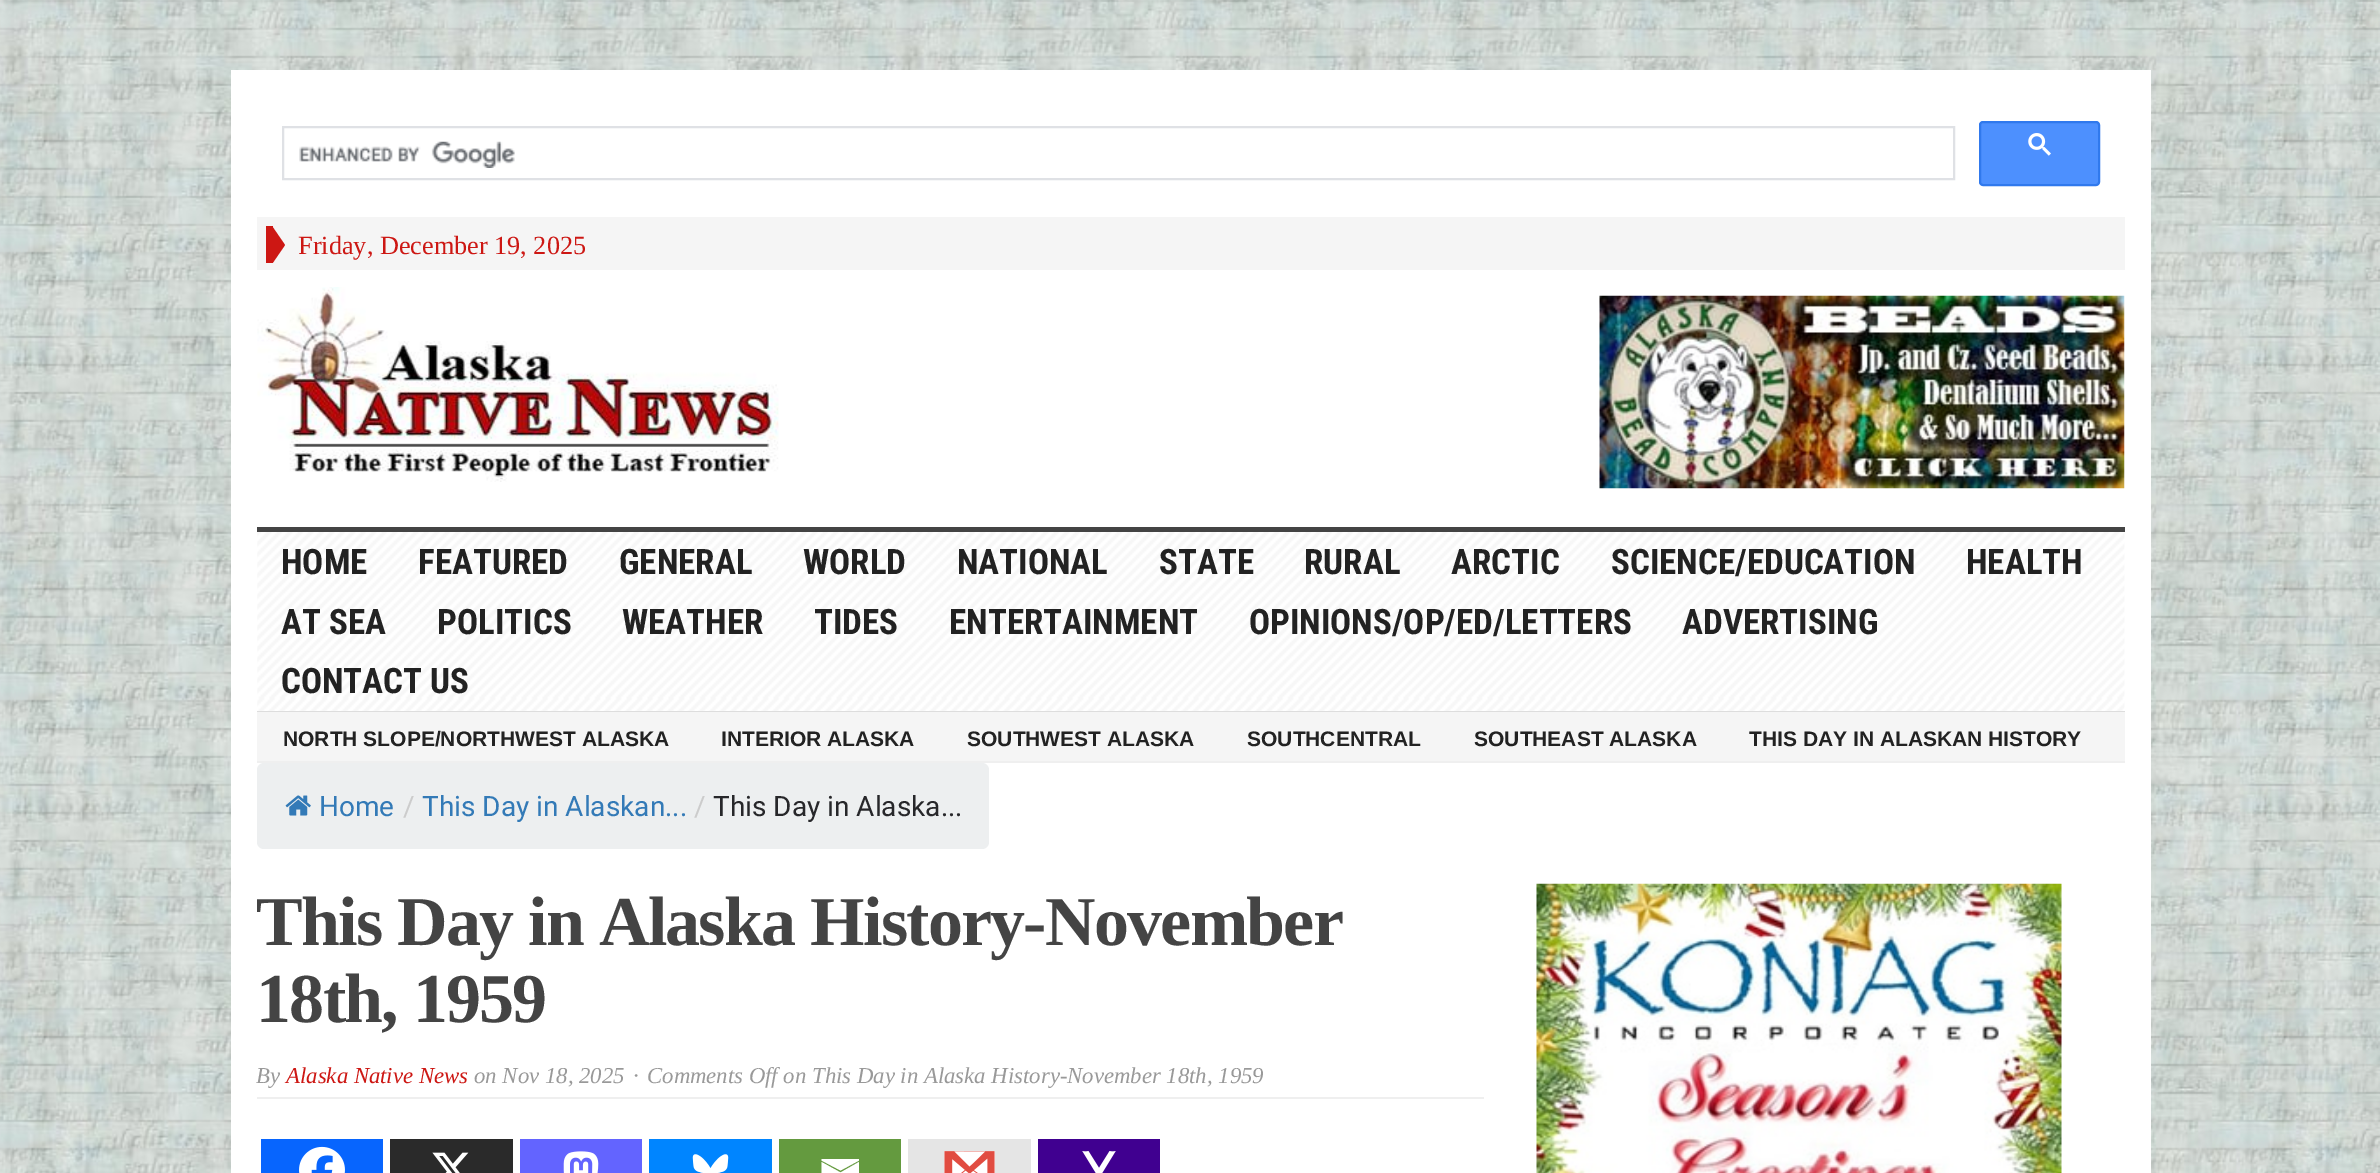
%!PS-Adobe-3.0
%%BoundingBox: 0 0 2380 1173
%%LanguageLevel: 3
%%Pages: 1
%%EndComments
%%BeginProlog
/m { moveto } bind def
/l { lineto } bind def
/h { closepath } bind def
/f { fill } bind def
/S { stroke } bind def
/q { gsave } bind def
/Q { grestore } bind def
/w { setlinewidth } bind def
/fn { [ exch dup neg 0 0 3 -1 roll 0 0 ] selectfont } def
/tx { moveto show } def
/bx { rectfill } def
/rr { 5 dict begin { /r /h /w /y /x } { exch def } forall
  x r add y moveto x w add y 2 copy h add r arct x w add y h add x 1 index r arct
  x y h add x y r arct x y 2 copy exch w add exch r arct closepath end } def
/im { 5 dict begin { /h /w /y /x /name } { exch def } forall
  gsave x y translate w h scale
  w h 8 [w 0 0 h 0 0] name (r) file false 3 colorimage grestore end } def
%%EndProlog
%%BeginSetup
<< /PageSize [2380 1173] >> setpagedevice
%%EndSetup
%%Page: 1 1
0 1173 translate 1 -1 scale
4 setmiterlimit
1 setgray
0 0 2380 1173 bx
(image0.raw) 0 0 2380 1173 im
231 70 1920 1103 bx
0.875 0.882 0.898 setrgbcolor
2 w
283 127 1671 52 rectstroke
(image1.raw) 299 141 216 27 im
0.302 0.565 0.996 setrgbcolor
1980 122 119 63 3 rr q f Q
0.188 0.475 0.929 setrgbcolor
S
(image2.raw) 2028 133 23 23 im
0.961 setgray
257 217 1868 53 bx
0.804 0.09 0.075 setrgbcolor
266 226 7 37 bx
273 262.5 m 273 227.5 l 285 245 l h f
/LiberationSerif-Regular 26.25 fn
(Friday, December 19, 2025) 298 254 tx
0.267 setgray
257 527 1868 5 bx
(image3.raw) 257 287 522 195 im
(image4.raw) 1599 295 526 194 im
(image5.raw) 257 532 1868 179 im
0.867 setgray
257 711 1868 1 bx
/RobotoCondensed-Bold 35 fn
0.133 setgray
(HOME) 281 574 tx
(FEATURED) 418 574 tx
(GENERAL) 619 574 tx
(WORLD) 803 574 tx
(NATIONAL) 957 574 tx
(STATE) 1159 574 tx
(RURAL) 1304 574 tx
(ARCTIC) 1451 574 tx
(SCIENCE/EDUCATION) 1611 574 tx
(HEALTH) 1966 574 tx
(AT SEA) 281 634 tx
(POLITICS) 437 634 tx
(WEATHER) 622 634 tx
(TIDES) 814 634 tx
(ENTERTAINMENT) 949 634 tx
(OPINIONS/OP/ED/LETTERS) 1249 634 tx
(ADVERTISING) 1682 634 tx
(CONTACT US) 281 693 tx
0.961 setgray
257 712 1868 49 bx
0.937 setgray
257 761 1868 2 bx
/LiberationSans-Bold 21 fn
0.133 setgray
(NORTH SLOPE/NORTHWEST ALASKA) 283 746 tx
(INTERIOR ALASKA) 721 746 tx
(SOUTHWEST ALASKA) 967 746 tx
(SOUTHCENTRAL) 1247 746 tx
(SOUTHEAST ALASKA) 1474 746 tx
(THIS DAY IN ALASKAN HISTORY) 1749 746 tx
0.929 0.937 0.941 setrgbcolor
257 763 732 86 7 rr f
(image6.raw) 285 795 26 21 im
/Roboto-Regular 28 fn
0.2 0.478 0.718 setrgbcolor
(Home) 319 816 tx
0.8 setgray
(/) 403 816 tx
0.2 0.478 0.718 setrgbcolor
(This Day in Alaskan...) 422 816 tx
0.8 setgray
(/) 694 816 tx
0.153 0.153 0.165 setrgbcolor
(This Day in Alaska...) 713 816 tx
0.937 setgray
257 1097 1227 2 bx
/LiberationSerif-Bold 70 fn
0.267 setgray
256 945 m -1.75 0 (This Day in Alaska History-November) ashow
256 1022 m -1.75 0 (18th, 1959) ashow
/LiberationSerif-Italic 22.75 fn
0.6 setgray
(By) 256 1083 tx
0.804 0.09 0.075 setrgbcolor
(Alaska Native News) 286 1083 tx
0.6 setgray
(on Nov 18, 2025) 474 1083 tx
(·) 633 1083 tx
(Comments Off on This Day in Alaska History-November 18th, 1959) 647 1083 tx
0.027 0.396 0.996 setrgbcolor
261 1139 122 34 bx
(image7.raw) 299 1146 46 27 im
0.165 setgray
390 1139 123 34 bx
(image8.raw) 432 1152 37 21 im
0.388 0.392 1 setrgbcolor
520 1139 122 34 bx
(image9.raw) 563 1151 36 22 im
0 0.522 1 setrgbcolor
649 1139 123 34 bx
(image10.raw) 692 1154 37 19 im
0.392 0.604 0.247 setrgbcolor
779 1139 122 34 bx
1 setgray
820 1159 m 859 1159 l 859 1160.5 l 840.5 1170.5 l 821.5 1160.5 l 821.5 1159 l 821.5 1162 m 840.5 1172.5 l 859 1162 l 859 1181 l 821.5 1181 l 821.5 1162 l f
0.898 setgray
908 1139 123 34 bx
(image11.raw) 944 1151 51 22 im
0.251 0 0.565 setrgbcolor
1038 1139 122 34 bx
(image12.raw) 1082 1151 34 22 im
(image13.raw) 1536 883 526 290 im
showpage
%%EOF
